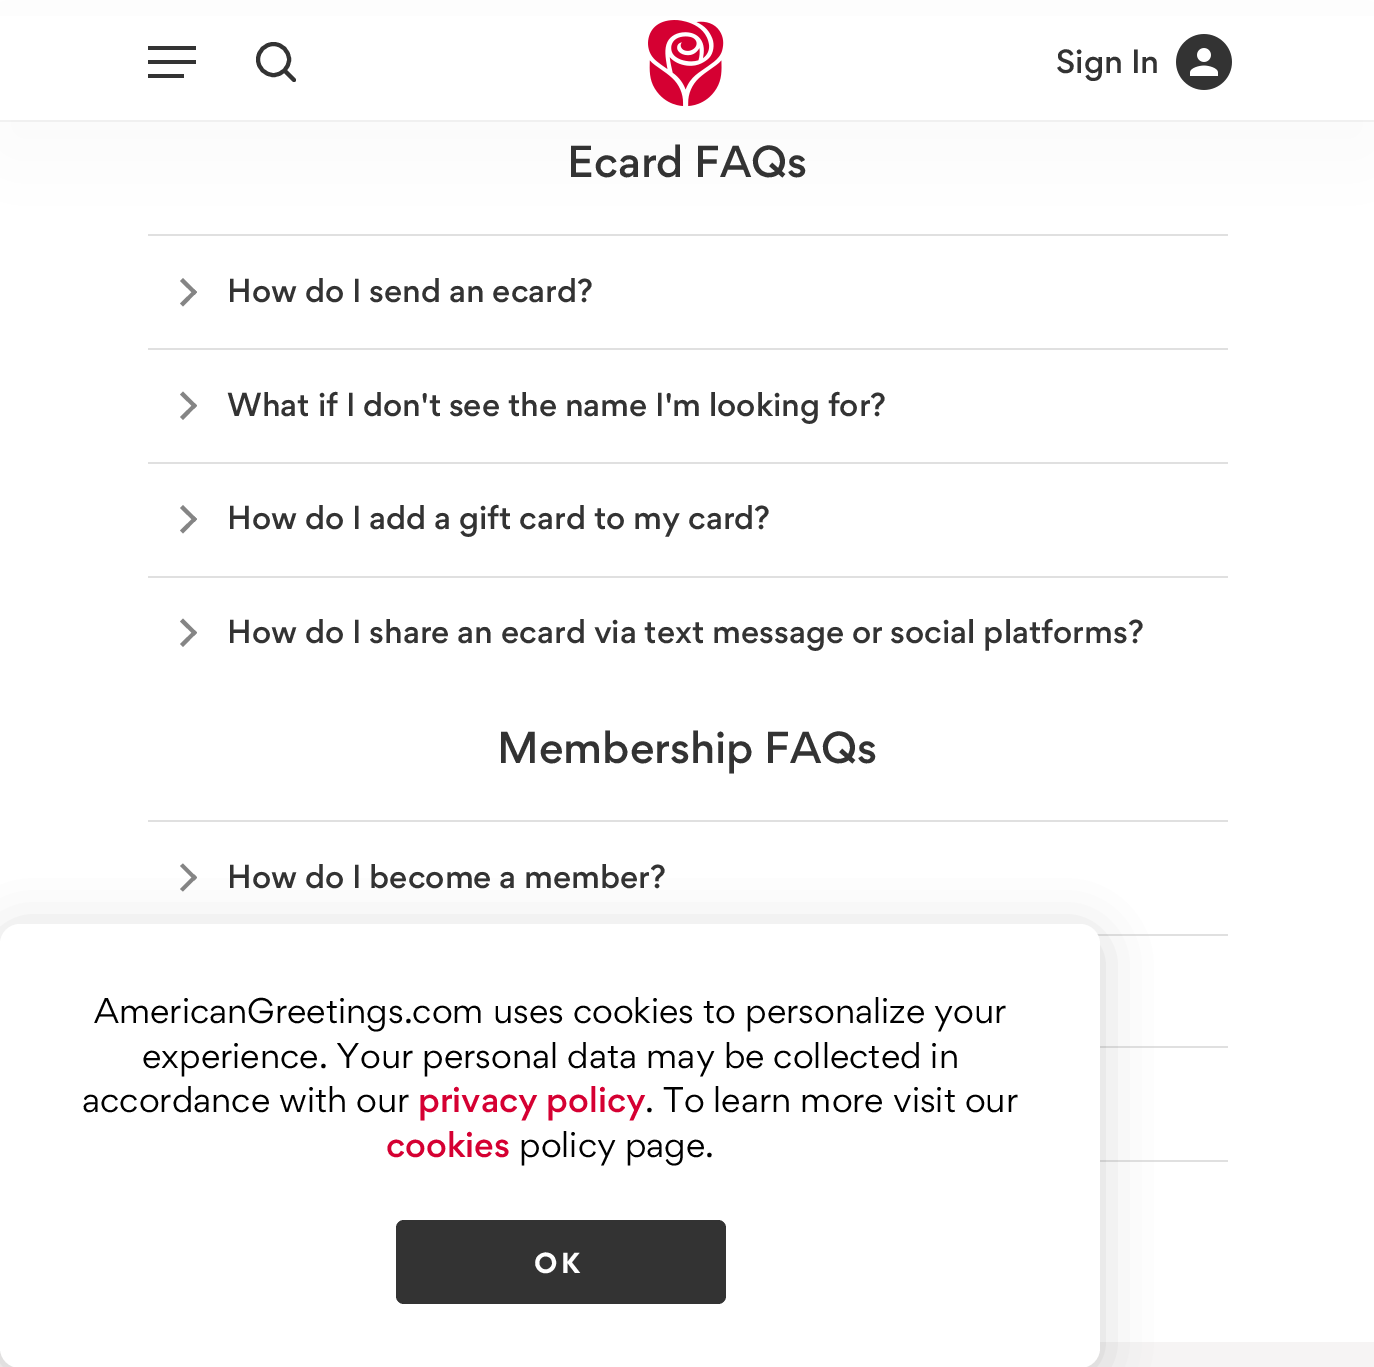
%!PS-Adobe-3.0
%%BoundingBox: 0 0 1374 1367
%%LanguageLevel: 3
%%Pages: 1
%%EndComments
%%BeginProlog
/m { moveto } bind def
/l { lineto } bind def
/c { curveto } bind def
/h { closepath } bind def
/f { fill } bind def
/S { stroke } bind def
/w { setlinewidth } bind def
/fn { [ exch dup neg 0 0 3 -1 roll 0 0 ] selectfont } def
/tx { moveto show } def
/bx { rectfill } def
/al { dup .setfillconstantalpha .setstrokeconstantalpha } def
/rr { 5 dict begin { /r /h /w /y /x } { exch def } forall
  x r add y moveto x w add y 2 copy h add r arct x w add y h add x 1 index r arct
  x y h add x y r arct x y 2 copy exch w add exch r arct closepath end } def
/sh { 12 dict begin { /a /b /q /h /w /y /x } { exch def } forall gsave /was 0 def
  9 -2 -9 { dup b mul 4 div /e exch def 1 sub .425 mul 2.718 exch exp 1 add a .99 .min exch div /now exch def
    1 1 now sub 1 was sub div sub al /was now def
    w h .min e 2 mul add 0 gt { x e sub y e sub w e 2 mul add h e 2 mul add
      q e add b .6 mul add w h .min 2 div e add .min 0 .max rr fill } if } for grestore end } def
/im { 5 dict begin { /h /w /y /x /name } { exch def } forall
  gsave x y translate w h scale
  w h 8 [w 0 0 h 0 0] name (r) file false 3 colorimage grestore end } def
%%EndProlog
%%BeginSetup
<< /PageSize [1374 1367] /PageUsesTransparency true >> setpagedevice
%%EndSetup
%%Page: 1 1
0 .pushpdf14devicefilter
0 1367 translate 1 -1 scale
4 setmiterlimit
1 setgray
0 0 1374 1367 bx
0.953 setgray
0 120 1374 2 bx
0.878 setgray
148 234 1080 2 bx
0.522 setgray
194.5 295 m 180 281 l 183 278 l 197 292 l h f
0.878 setgray
0 30 1374 120 0 45 0.22 sh
1 setgray
0 16 1374 104 bx
0.2 setgray
148 46 48 4 bx
148 60 48 4 bx
148 74 36 4 bx
4 w
1 setlinecap
1 setlinejoin
273.5 75 m 282 75 289 68 289 59.5 c 289 51 282 44 273.5 44 c 265 44 258 51 258 59.5 c 258 68 265 75 273.5 75 c h 294 80 m 284.5 70.5 l S
(image0.raw) 648 20 76 86 im
/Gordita-Medium 30 fn
(Sign In) 1056 73 tx
(image1.raw) 1176 34 56 56 im
/Gordita-Medium 40 fn
(Membership FAQs) 497 763 tx
1 setgray
736 731 m 737.5 733 l 727 743.5 l 725 741.5 l h f
0.2 setgray
(Ecard FAQs) 567 177 tx
0.522 setgray
183 306.5 m 180 303.5 l 194.5 289.5 l 197 292 l h f
/Gordita-Medium 29.6 fn
0.2 setgray
(How do I send an ecard?) 227 302 tx
0.878 setgray
148 348 1080 2 bx
0.522 setgray
194.5 408.5 m 180 394.5 l 183 391.5 l 197 405.5 l h f
183 420 m 180 417 l 194.5 403 l 197 405.5 l h f
0.2 setgray
(What if I don't see the name I'm looking for?) 227 416 tx
0.878 setgray
148 462 1080 2 bx
0.522 setgray
194.5 522 m 180 508 l 183 505 l 197 519 l h f
183 533.5 m 180 530.5 l 194.5 516.5 l 197 519 l h f
0.2 setgray
(How do I add a gift card to my card?) 227 529 tx
0.878 setgray
148 576 1080 2 bx
0.522 setgray
194.5 635.5 m 180 621.5 l 183 618.5 l 197 632.5 l h f
183 647 m 180 644 l 194.5 630 l 197 632.5 l h f
0.2 setgray
(How do I share an ecard via text message or social platforms?) 227 643 tx
0.878 setgray
148 820 1080 2 bx
0.522 setgray
194.5 880.5 m 180 866 l 183 863.5 l 197 877.5 l h f
183 891.5 m 180 889 l 194.5 874.5 l 197 877.5 l h f
0.2 setgray
(How do I become a member?) 227 888 tx
0.878 setgray
1097 934 131 2 bx
1100 1046 128 2 bx
1100 1160 128 2 bx
0.965 0.957 0.957 setrgbcolor
0 1342 1374 25 bx
0.2 setgray
0 932 1100 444 20 24 0.2 sh
1 setgray
0 924 1100 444 20 rr f
/Gordita-Regular 32 fn
0 setgray
(AmericanGreetings.com uses cookies to personalize your) 94 1023 tx
(experience. Your personal data may be collected in) 142 1068 tx
(accordance with our) 82 1112 tx
/Gordita-Medium 32 fn
0.835 0 0.196 setrgbcolor
(privacy policy) 418 1112 tx
/Gordita-Regular 32 fn
0 setgray
(. To learn more visit our) 645 1112 tx
/Gordita-Medium 32 fn
0.835 0 0.196 setrgbcolor
(cookies) 386 1157 tx
/Gordita-Regular 32 fn
0 setgray
(policy page.) 519 1157 tx
0.2 setgray
396 1220 330 84 8 rr f
/Gordita-Bold 26 fn
1 setgray
534 1273 m 4 0 (OK) ashow
.poppdf14devicefilter showpage
%%EOF
